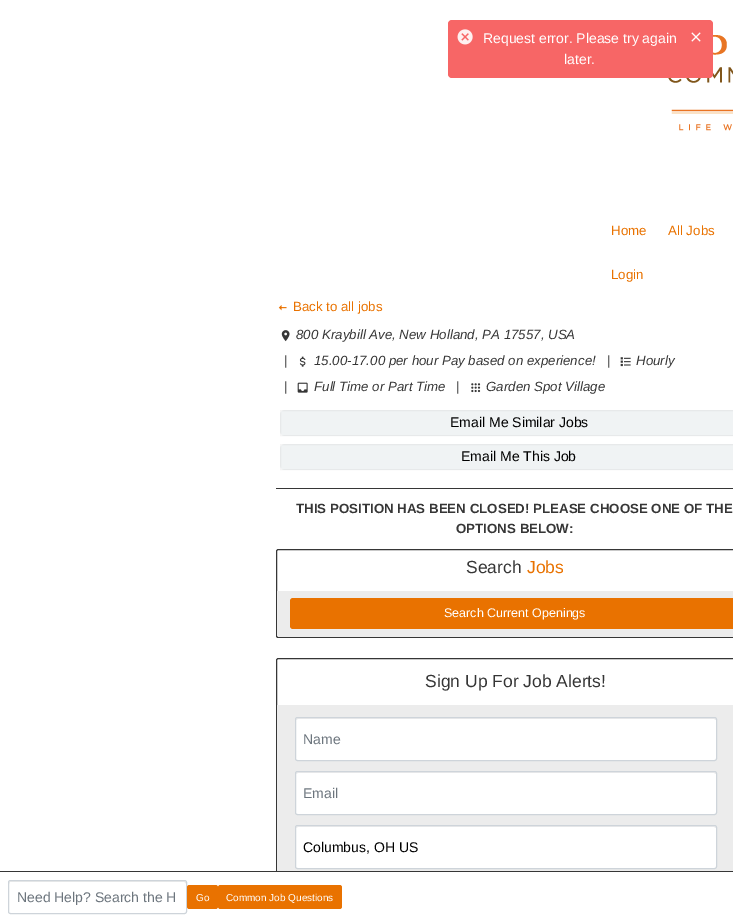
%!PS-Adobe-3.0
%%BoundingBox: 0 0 733 922
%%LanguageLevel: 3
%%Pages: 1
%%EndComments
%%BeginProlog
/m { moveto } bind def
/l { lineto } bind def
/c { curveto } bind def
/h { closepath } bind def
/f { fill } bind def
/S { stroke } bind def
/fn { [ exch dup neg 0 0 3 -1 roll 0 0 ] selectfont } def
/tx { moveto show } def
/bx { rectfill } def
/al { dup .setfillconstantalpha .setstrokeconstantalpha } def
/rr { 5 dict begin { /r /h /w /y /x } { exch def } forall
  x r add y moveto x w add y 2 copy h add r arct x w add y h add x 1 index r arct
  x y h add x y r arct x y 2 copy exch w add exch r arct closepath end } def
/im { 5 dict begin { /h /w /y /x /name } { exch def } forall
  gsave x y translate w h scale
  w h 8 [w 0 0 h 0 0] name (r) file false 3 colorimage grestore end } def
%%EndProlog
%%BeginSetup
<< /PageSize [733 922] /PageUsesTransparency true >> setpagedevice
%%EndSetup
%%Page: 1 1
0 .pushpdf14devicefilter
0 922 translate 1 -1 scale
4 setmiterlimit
1 setgray
0 0 733 922 bx
(image2.raw) 610 34 123 97 im
0.965 0.333 0.333 setrgbcolor
448 20 265 58 4 rr f
(image0.raw) 457 29 16 16 im
0.1 al
1 setgray
448 20 265 58 4 rr f
/LiberationSans-Regular 14 fn
1 al
(Request error. Please try again) 483 43 tx
(later.) 564 64 tx
(image1.raw) 691 32 10 10 im
/LiberationSans-Regular 13.3 fn
0.914 0.447 0 setrgbcolor
(Home) 611 235 tx
(All Jobs) 668 235 tx
(Login) 611 279 tx
(image3.raw) 278 305 9 6 im
(Back to all jobs) 293 311 tx
(image4.raw) 281 330 9 12 im
/LiberationSans-Italic 13.3 fn
0.212 setgray
(800 Kraybill Ave, New Holland, PA 17557, USA) 296 339 tx
/LiberationSans-Regular 13.3 fn
(|) 284 365 tx
(image5.raw) 299 356 7 11 im
/LiberationSans-Italic 13.3 fn
(15.00-17.00 per hour Pay based on experience!) 314 365 tx
/LiberationSans-Regular 13.3 fn
(|) 607 365 tx
(image6.raw) 620 357 11 10 im
/LiberationSans-Italic 13.3 fn
(Hourly) 636 365 tx
/LiberationSans-Regular 13.3 fn
(|) 284 391 tx
(image7.raw) 297 382 11 11 im
/LiberationSans-Italic 13.3 fn
(Full Time or Part Time) 314 391 tx
/LiberationSans-Regular 13.3 fn
(|) 456 391 tx
(image8.raw) 471 383 10 10 im
/LiberationSans-Italic 13.3 fn
(Garden Spot Village) 486 391 tx
0.941 0.953 0.957 setrgbcolor
280 410 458 26 5 rr f
0.04 al
0 setgray
280.5 410.5 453 25 rectstroke
/LiberationSans-Regular 14 fn
1 al
(Email Me Similar Jobs) 450 427 tx
0.941 0.953 0.957 setrgbcolor
280 444 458 26 5 rr f
0.04 al
0 setgray
280.5 444.5 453 25 rectstroke
1 al
(Email Me This Job) 461 461 tx
0.212 setgray
276 488 457 1 bx
/LiberationSans-Bold 13.3 fn
(THIS POSITION HAS BEEN CLOSED! PLEASE CHOOSE ONE OF THE) 296 513 tx
(OPTIONS BELOW:) 456 533 tx
278.5 549.5 m 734.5 549.5 l 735.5 549.5 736.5 550.5 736.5 551.5 c 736.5 591.5 l 276.5 591.5 l 276.5 551.5 l 276.5 550.5 277.5 549.5 278.5 549.5 c h S
/LiberationSans-Regular 17.5 fn
(Search) 466 573 tx
0.914 0.447 0 setrgbcolor
(Jobs) 527 573 tx
0.925 setgray
277 591 m 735 591 l 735 635.5 l 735 636.5 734.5 637 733.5 637 c 278.5 637 l 277.5 637 277 636.5 277 635.5 c h f
0.212 setgray
276 591 m 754 591 l 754 636 l 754 637 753 638 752 638 c 278 638 l 277 638 276 637 276 636 c h 277 591 m 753 591 l 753 636 l 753 636 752 637 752 637 c 278 637 l 278 637 277 636 277 636 c h eofill
0.914 0.447 0 setrgbcolor
290 598 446 31 3 rr f
/LiberationSans-Regular 12.5 fn
1 setgray
(Search Current Openings) 444 617 tx
0.212 setgray
278.5 658.5 m 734.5 658.5 l 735.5 658.5 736.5 659.5 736.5 660.5 c 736.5 705.5 l 276.5 705.5 l 276.5 660.5 l 276.5 659.5 277.5 658.5 278.5 658.5 c h S
/LiberationSans-Regular 17.5 fn
(Sign Up For Job Alerts!) 425 687 tx
0.925 setgray
277 705 456 166 bx
0.212 setgray
276 705 m 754 705 l 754 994 l 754 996 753 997 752 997 c 278 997 l 277 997 276 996 276 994 c h 277 705 m 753 705 l 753 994 l 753 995 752 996 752 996 c 278 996 l 278 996 277 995 277 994 c h eofill
1 setgray
296 718 420 42 1.5 rr f
0.07 al
0 setgray
298 719 m 714 719 l 716 720 l 716 719 716 718 714 718 c 298 718 l 296 718 296 719 296 720 c h f
1 al
0.808 0.831 0.855 setrgbcolor
295.5 717.5 421 43 2 rr S
/LiberationSans-Regular 14 fn
0.424 0.459 0.49 setrgbcolor
(Name) 303 744 tx
1 setgray
296 772 420 42 1.5 rr f
0.07 al
0 setgray
298 773 m 714 773 l 716 774 l 716 773 716 772 714 772 c 298 772 l 296 772 296 773 296 774 c h f
1 al
0.808 0.831 0.855 setrgbcolor
295.5 771.5 421 43 2 rr S
0.424 0.459 0.49 setrgbcolor
(Email) 303 798 tx
1 setgray
296 826 420 42 1.5 rr f
0.07 al
0 setgray
298 827 m 714 827 l 716 828 l 716 827 716 826 714 826 c 298 826 l 296 826 296 827 296 828 c h f
1 al
0.808 0.831 0.855 setrgbcolor
295.5 825.5 421 43 2 rr S
0 setgray
(Columbus, OH US) 303 852 tx
1 setgray
276 872 1 50 bx
0.212 setgray
0 871 733 1 bx
0.925 setgray
10 882 m 184 882 l 185 882 186 883 186 884 c 186 883 186 881 184 881 c 10 881 l 9 881 9 883 9 884 c h f
0.808 0.831 0.855 setrgbcolor
8.5 880.5 178 33 2 rr S
0.424 0.459 0.49 setrgbcolor
(Need Help? Search the H) 17 902 tx
0.914 0.447 0 setrgbcolor
187 885 31 24 2.5 rr f
/LiberationSans-Regular 10 fn
1 setgray
(Go) 196 901 tx
0.914 0.447 0 setrgbcolor
218 885 124 24 2.5 rr f
1 setgray
(Common Job Questions) 226 901 tx
.poppdf14devicefilter showpage
%%EOF
